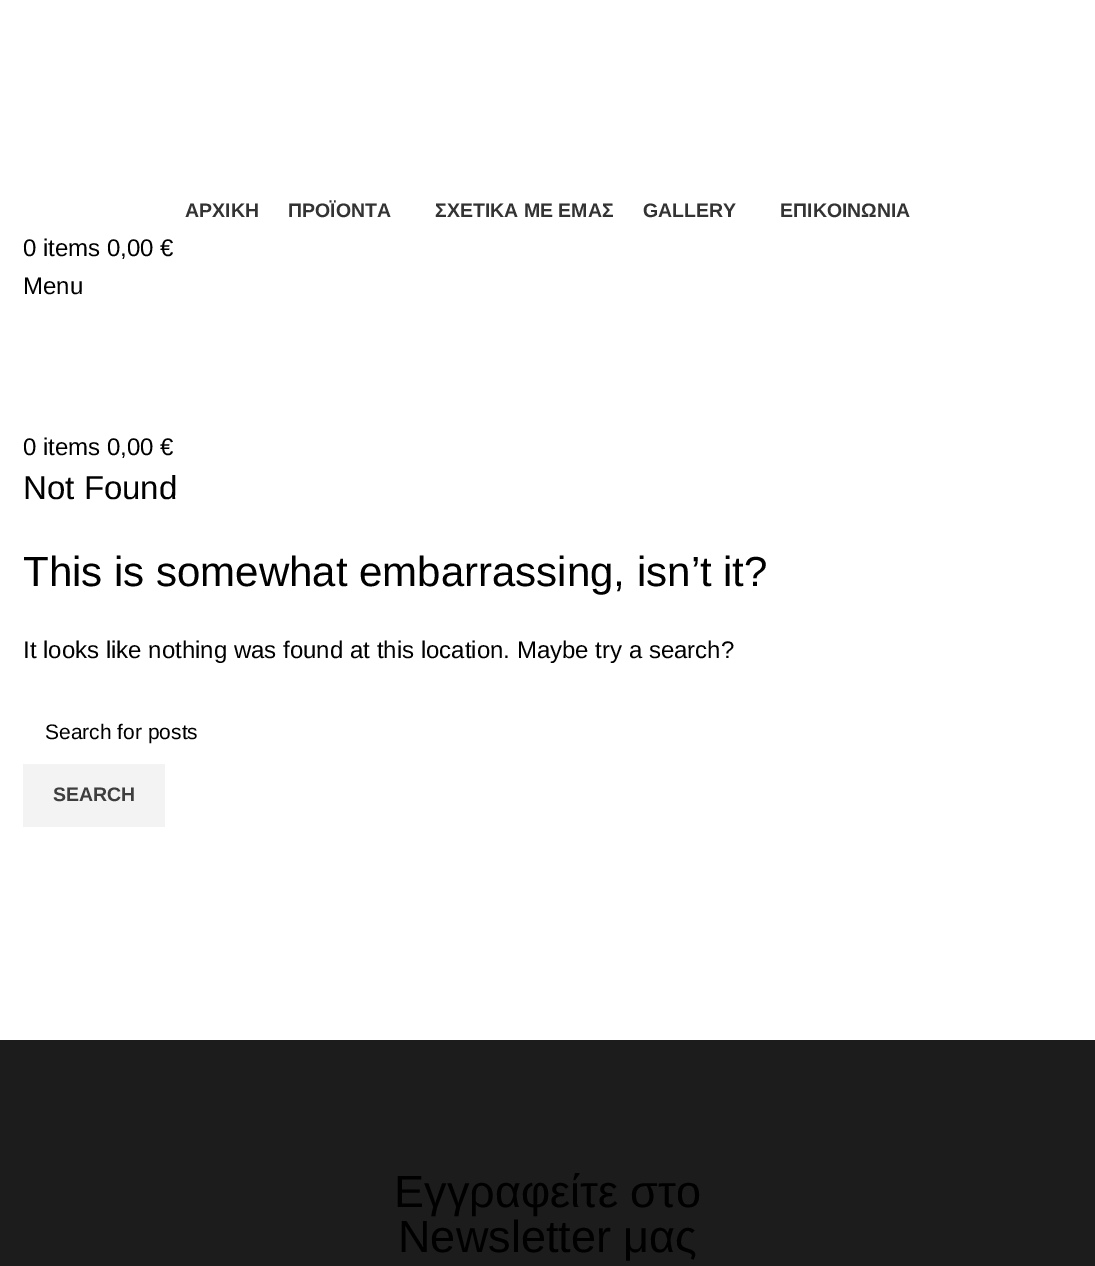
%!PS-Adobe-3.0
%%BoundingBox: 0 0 1095 1266
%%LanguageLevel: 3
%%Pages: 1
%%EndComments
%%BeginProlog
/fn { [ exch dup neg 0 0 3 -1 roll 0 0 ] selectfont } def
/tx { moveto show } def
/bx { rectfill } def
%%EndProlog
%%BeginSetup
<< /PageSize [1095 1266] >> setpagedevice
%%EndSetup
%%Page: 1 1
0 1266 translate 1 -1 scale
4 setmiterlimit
1 setgray
0 0 1095 1266 bx
/LiberationSans-Bold 19.5 fn
0.2 setgray
(ΑΡΧΙΚΗ) 185 217 tx
(ΠΡΟΪΟΝΤΑ) 288 217 tx
(ΣΧΕΤΙΚΑ ΜΕ ΕΜΑΣ) 435 217 tx
(GALLERY) 643 217 tx
(ΕΠΙΚΟΙΝΩΝΙΑ) 780 217 tx
/LiberationSans-Regular 24 fn
0 setgray
(0 items 0,00 €) 23 256 tx
(Menu) 23 294 tx
(0 items 0,00 €) 23 455 tx
/LiberationSans-Regular 33 fn
(Not Found) 23 499 tx
/LiberationSans-Regular 42 fn
(This is somewhat embarrassing, isn’t it?) 23 586 tx
/LiberationSans-Regular 24 fn
(It looks like nothing was found at this location. Maybe try a search?) 23 658 tx
/LiberationSans-Regular 21 fn
(Search for posts) 45 739 tx
0.953 setgray
23 764 142 63 bx
/LiberationSans-Bold 19.5 fn
0.243 setgray
(SEARCH) 53 801 tx
0.11 setgray
0 1040 1095 226 bx
/LiberationSans-Regular 45 fn
0 setgray
(Εγγραφείτε στο) 394 1207 tx
(Newsletter μας) 398 1252 tx
showpage
%%EOF
